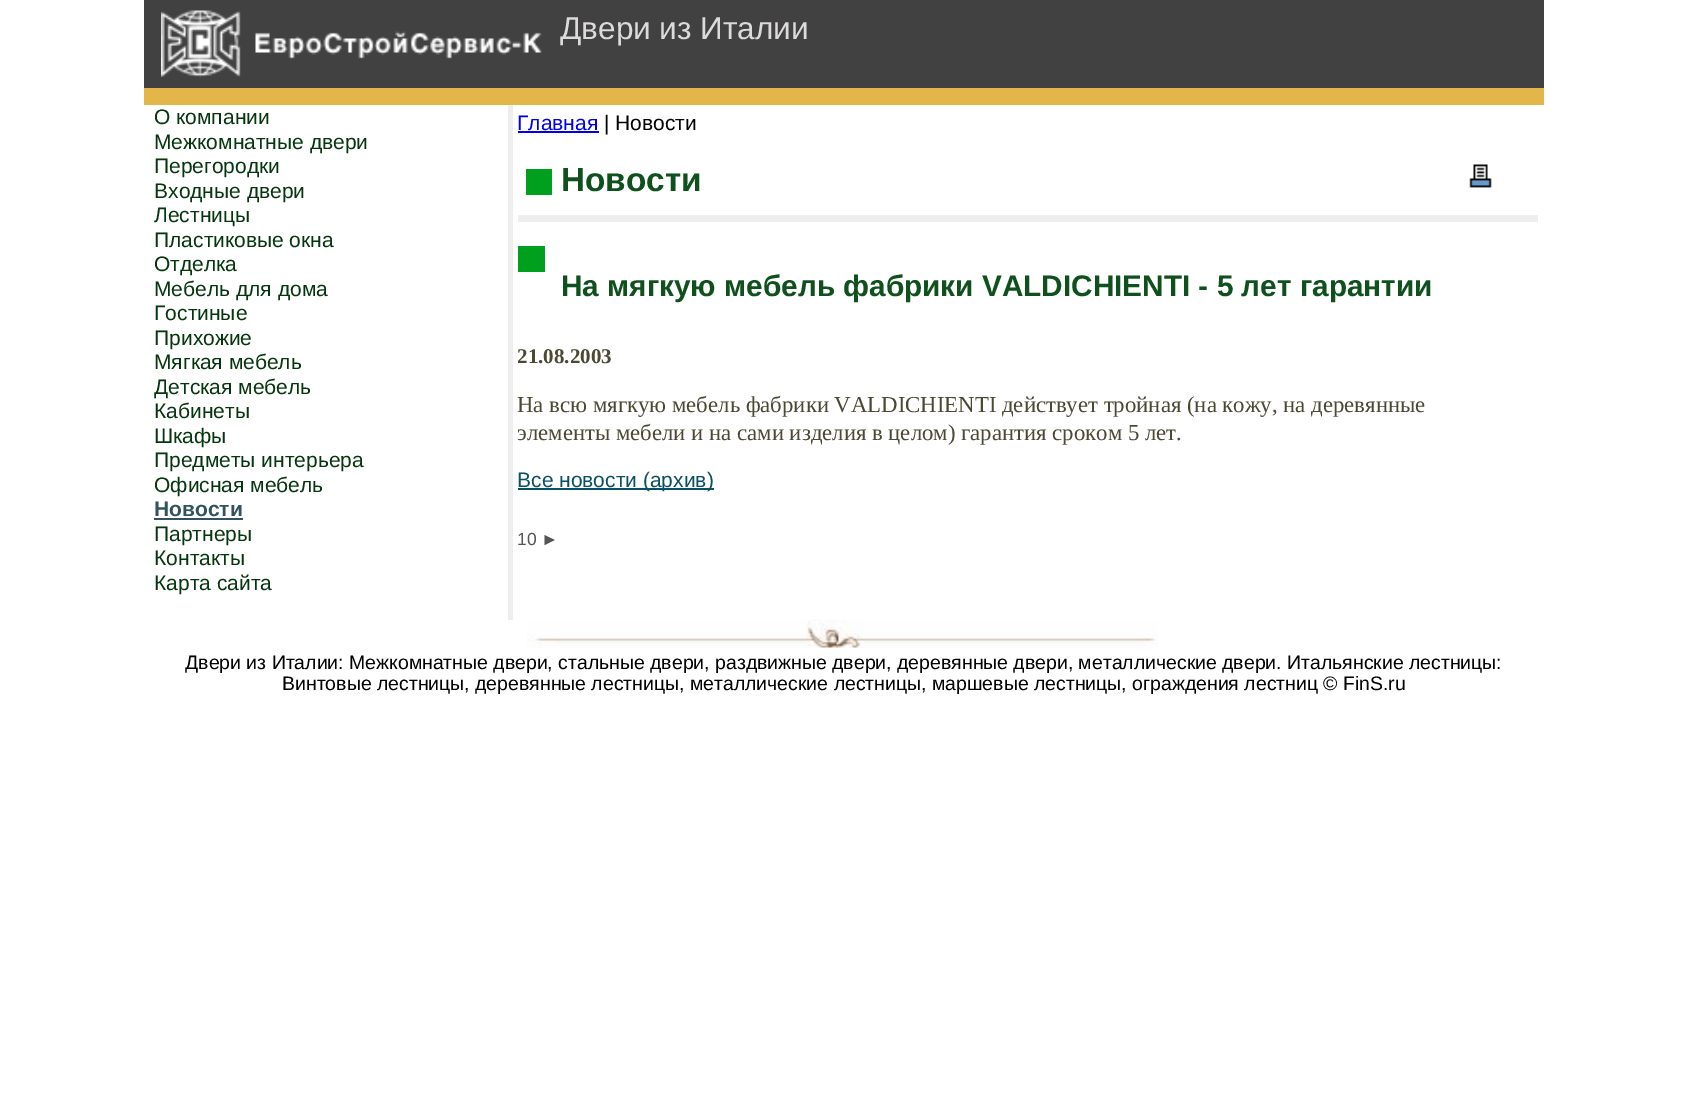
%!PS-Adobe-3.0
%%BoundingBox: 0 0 1687 1098
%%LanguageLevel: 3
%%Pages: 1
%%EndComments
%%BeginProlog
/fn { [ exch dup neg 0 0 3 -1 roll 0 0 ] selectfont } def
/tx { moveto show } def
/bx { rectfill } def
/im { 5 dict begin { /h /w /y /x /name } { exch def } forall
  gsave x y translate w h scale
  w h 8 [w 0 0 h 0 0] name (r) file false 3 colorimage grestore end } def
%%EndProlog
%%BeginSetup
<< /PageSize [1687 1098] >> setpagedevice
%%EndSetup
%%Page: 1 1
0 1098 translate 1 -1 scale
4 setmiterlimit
1 setgray
0 0 1687 1098 bx
0.255 setgray
144 0 1400 88 bx
(image0.raw) 161 10 381 67 im
/LiberationSans-Regular 31.5 fn
0.867 0.855 0.855 setrgbcolor
(Двери из Италии) 560 39 tx
0.89 0.714 0.29 setrgbcolor
144 88 1400 17 bx
/LiberationSans-Regular 21 fn
0.02 0.212 0.055 setrgbcolor
(О компании) 154 124 tx
(Межкомнатные двери) 154 149 tx
(Перегородки) 154 173 tx
(Входные двери) 154 198 tx
(Лестницы) 154 222 tx
(Пластиковые окна) 154 247 tx
(Отделка) 154 271 tx
(Мебель для дома) 154 296 tx
(Гостиные) 154 320 tx
(Прихожие) 154 345 tx
(Мягкая мебель) 154 369 tx
(Детская мебель) 154 394 tx
(Кабинеты) 154 418 tx
(Шкафы) 154 443 tx
(Предметы интерьера) 154 467 tx
(Офисная мебель) 154 492 tx
/LiberationSans-Bold 21 fn
0.192 0.322 0.369 setrgbcolor
(Новости) 154 516 tx
154 518 89 2 bx
/LiberationSans-Regular 21 fn
0.02 0.212 0.055 setrgbcolor
(Партнеры) 154 541 tx
(Контакты) 154 565 tx
(Карта сайта) 154 590 tx
0.933 setgray
508 105 5 515 bx
0 0 0.933 setrgbcolor
(Главная) 517 130 tx
518 131 81 2 bx
0 setgray
(| Новости) 604 130 tx
0 0.624 0.118 setrgbcolor
526 169 26 26 bx
0.933 setgray
518 215 1020 7 bx
/LiberationSans-Bold 33.25 fn
0.059 0.318 0.11 setrgbcolor
(Новости) 561 191 tx
(image1.raw) 1469 164 23 24 im
0 0.624 0.118 setrgbcolor
518 246 27 26 bx
/LiberationSans-Bold 29.75 fn
0.059 0.318 0.11 setrgbcolor
(На мягкую мебель фабрики VALDICHIENTI - 5 лет гарантии) 561 296 tx
/LiberationSerif-Bold 21 fn
0.294 0.282 0.204 setrgbcolor
(21.08.2003) 517 363 tx
/LiberationSerif-Regular 22.75 fn
(На всю мягкую мебель фабрики VALDICHIENTI действует тройная \(на кожу, на деревянные) 517 412 tx
(элементы мебели и на сами изделия в целом\) гарантия сроком 5 лет.) 517 440 tx
0.039 0.314 0.388 setrgbcolor
518 488 196 2 bx
/LiberationSans-Regular 21 fn
(Все новости \(архив\)) 517 487 tx
/LiberationSans-Regular 17.5 fn
0.333 setgray
(10 ►) 517 545 tx
(image2.raw) 527 619 631 29 im
/LiberationSans-Regular 19.45 fn
0 setgray
(Двери из Италии: Межкомнатные двери, стальные двери, раздвижные двери, деревянные двери, металлические двери. Итальянские лестницы:) 185 669 tx
(Винтовые лестницы, деревянные лестницы, металлические лестницы, маршевые лестницы, ограждения лестниц © FinS.ru) 282 690 tx
showpage
%%EOF
